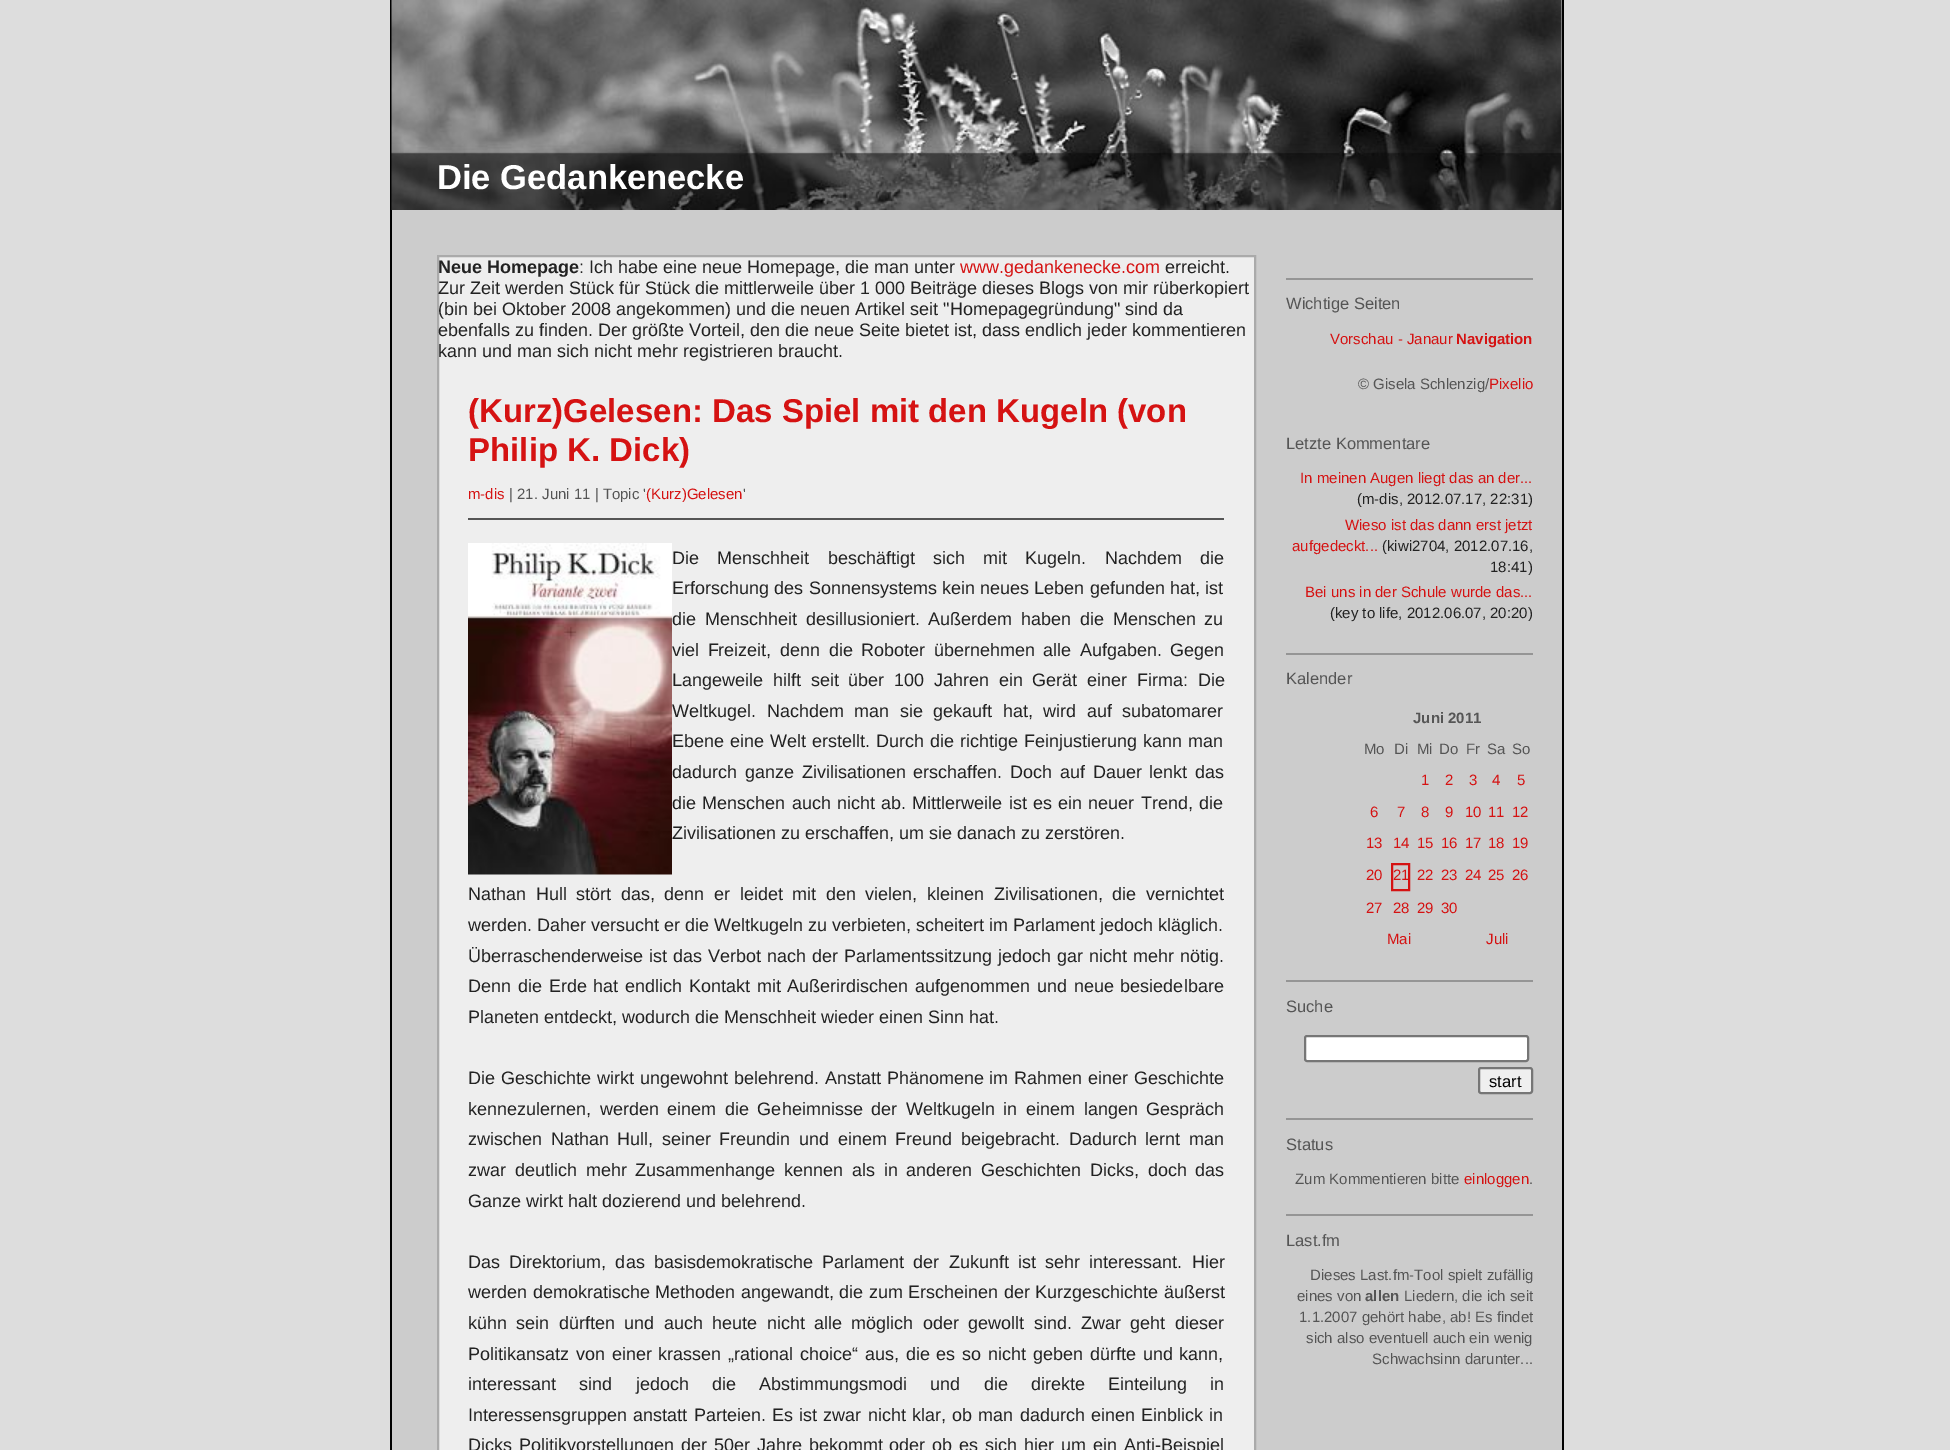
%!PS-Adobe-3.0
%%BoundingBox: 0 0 1950 1450
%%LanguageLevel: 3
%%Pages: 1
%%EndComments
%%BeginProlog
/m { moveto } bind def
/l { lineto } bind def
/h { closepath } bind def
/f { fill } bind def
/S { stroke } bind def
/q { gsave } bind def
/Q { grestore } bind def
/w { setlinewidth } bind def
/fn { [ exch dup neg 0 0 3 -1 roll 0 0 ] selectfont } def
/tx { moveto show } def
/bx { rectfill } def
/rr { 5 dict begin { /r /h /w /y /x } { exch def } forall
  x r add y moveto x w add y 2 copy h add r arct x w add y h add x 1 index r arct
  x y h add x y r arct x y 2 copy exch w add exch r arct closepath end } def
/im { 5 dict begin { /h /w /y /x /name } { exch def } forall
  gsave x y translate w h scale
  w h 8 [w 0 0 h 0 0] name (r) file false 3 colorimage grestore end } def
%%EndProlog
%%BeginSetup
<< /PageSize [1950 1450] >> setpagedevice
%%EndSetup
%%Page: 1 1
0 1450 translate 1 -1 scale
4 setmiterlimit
0.867 setgray
0 0 1950 1450 bx
0.8 setgray
392 0 1170 1450 bx
0 setgray
1562 0 2 1450 bx
390 0 2 1450 bx
(image0.raw) 391 0 1171 210 im
/LiberationSans-Bold 34.5 fn
1 setgray
(Die Gedankenecke) 437 189 tx
0.933 setgray
438 256 m 1255 256 l 1255 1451 l 438 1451 l h q f Q
0.667 setgray
2 w
S
/LiberationSans-Bold 18 fn
0.133 setgray
(Neue Homepage) 438 273 tx
/LiberationSans-Regular 18 fn
(: Ich habe eine neue Homepage, die man unter) 579 273 tx
0.835 0.071 0.071 setrgbcolor
(www.gedankenecke.com) 960 273 tx
0.133 setgray
(erreicht.) 1165 273 tx
(Zur Zeit werden Stück für Stück die mittlerweile über 1 000 Beiträge dieses Blogs von mir rüberkopiert) 438 294 tx
(\(bin bei Oktober 2008 angekommen\) und die neuen Artikel seit "Homepagegründung" sind da) 438 315 tx
(ebenfalls zu finden. Der größte Vorteil, den die neue Seite bietet ist, dass endlich jeder kommentieren) 438 336 tx
(kann und man sich nicht mehr registrieren braucht.) 438 357 tx
/LiberationSans-Bold 33 fn
0.835 0.071 0.071 setrgbcolor
(\(Kurz\)Gelesen: Das Spiel mit den Kugeln \(von) 468 422 tx
(Philip K. Dick\)) 468 461 tx
0.333 setgray
468 518 756 2 bx
/LiberationSans-Regular 15 fn
0.835 0.071 0.071 setrgbcolor
(m-dis) 468 499 tx
0.333 setgray
(| 21. Juni 11 | Topic ') 509 499 tx
0.835 0.071 0.071 setrgbcolor
(\(Kurz\)Gelesen) 646 499 tx
0.333 setgray
(') 743 499 tx
(image1.raw) 468 543 204 332 im
/LiberationSans-Regular 18 fn
0.133 setgray
672 564 m 13.25 0 32 (Die Menschheit beschäftigt sich mit Kugeln. Nachdem die) widthshow
672 594 m 0.25 0 32 (Erforschung des Sonnensystems kein neues Leben gefunden hat, ist) widthshow
672 625 m 3.75 0 32 (die Menschheit desillusioniert. Außerdem haben die Menschen zu) widthshow
672 656 m 3.5 0 32 (viel Freizeit, denn die Roboter übernehmen alle Aufgaben. Gegen) widthshow
672 686 m 4.75 0 32 (Langeweile hilft seit über 100 Jahren ein Gerät einer Firma: Die) widthshow
672 717 m 5.5 0 32 (Weltkugel. Nachdem man sie gekauft hat, wird auf subatomarer) widthshow
672 747 m 1 0 32 (Ebene eine Welt erstellt. Durch die richtige Feinjustierung kann man) widthshow
672 778 m 2.75 0 32 (dadurch ganze Zivilisationen erschaffen. Doch auf Dauer lenkt das) widthshow
672 809 m 1.25 0 32 (die Menschen auch nicht ab. Mittlerweile ist es ein neuer Trend, die) widthshow
(Zivilisationen zu erschaffen, um sie danach zu zerstören.) 672 839 tx
468 900 m 4.6 0 32 (Nathan Hull stört das, denn er leidet mit den vielen, kleinen Zivilisationen, die vernichtet) widthshow
(werden. Daher versucht er die Weltkugeln zu verbieten, scheitert im Parlament jedoch kläglich.) 468 931 tx
468 962 m 1 0 32 (Überraschenderweise ist das Verbot nach der Parlamentssitzung jedoch gar nicht mehr nötig.) widthshow
468 992 m 1.75 0 32 (Denn die Erde hat endlich Kontakt mit Außerirdischen aufgenommen und neue besiedelbare) widthshow
(Planeten entdeckt, wodurch die Menschheit wieder einen Sinn hat.) 468 1023 tx
468 1084 m 0.9 0 32 (Die Geschichte wirkt ungewohnt belehrend. Anstatt Phänomene im Rahmen einer Geschichte) widthshow
468 1115 m 3.6 0 32 (kennezulernen, werden einem die Geheimnisse der Weltkugeln in einem langen Gespräch) widthshow
468 1145 m 3.6 0 32 (zwischen Nathan Hull, seiner Freundin und einem Freund beigebracht. Dadurch lernt man) widthshow
468 1176 m 3.75 0 32 (zwar deutlich mehr Zusammenhange kennen als in anderen Geschichten Dicks, doch das) widthshow
(Ganze wirkt halt dozierend und belehrend.) 468 1207 tx
468 1268 m 4.25 0 32 (Das Direktorium, das basisdemokratische Parlament der Zukunft ist sehr interessant. Hier) widthshow
468 1298 m 0.5 0 32 (werden demokratische Methoden angewandt, die zum Erscheinen der Kurzgeschichte äußerst) widthshow
468 1329 m 4.4 0 32 (kühn sein dürften und auch heute nicht alle möglich oder gewollt sind. Zwar geht dieser) widthshow
468 1360 m 1.8 0 32 (Politikansatz von einer krassen „rational choice“ aus, die es so nicht geben dürfte und kann,) widthshow
468 1390 m 18.25 0 32 (interessant sind jedoch die Abstimmungsmodi und die direkte Einteilung in) widthshow
468 1421 m 1.25 0 32 (Interessensgruppen anstatt Parteien. Es ist zwar nicht klar, ob man dadurch einen Einblick in) widthshow
468 1451 m 1.9 0 32 (Dicks Politikvorstellungen der 50er Jahre bekommt oder ob es sich hier um ein Anti-Beispiel) widthshow
0.584 setgray
1286 278 247 2 bx
/LiberationSans-Regular 16.5 fn
0.333 setgray
(Wichtige Seiten) 1286 309 tx
/LiberationSans-Regular 15 fn
0.835 0.071 0.071 setrgbcolor
(Vorschau - Janaur) 1330 344 tx
/LiberationSans-Bold 15 fn
(Navigation) 1456 344 tx
/LiberationSans-Regular 15 fn
0.333 setgray
(© Gisela Schlenzig/) 1358 389 tx
0.835 0.071 0.071 setrgbcolor
(Pixelio) 1489 389 tx
/LiberationSans-Regular 16.5 fn
0.333 setgray
(Letzte Kommentare) 1286 449 tx
/LiberationSans-Regular 15 fn
0.835 0.071 0.071 setrgbcolor
(In meinen Augen liegt das an der...) 1300 483 tx
0.133 setgray
(\(m-dis, 2012.07.17, 22:31\)) 1357 504 tx
0.835 0.071 0.071 setrgbcolor
(Wieso ist das dann erst jetzt) 1345 530 tx
(aufgedeckt...) 1292 551 tx
0.133 setgray
(\(kiwi2704, 2012.07.16,) 1382 551 tx
(18:41\)) 1490 572 tx
0.835 0.071 0.071 setrgbcolor
(Bei uns in der Schule wurde das...) 1305 597 tx
0.133 setgray
(\(key to life, 2012.06.07, 20:20\)) 1330 618 tx
0.584 setgray
1286 653 247 2 bx
/LiberationSans-Regular 16.5 fn
0.333 setgray
(Kalender) 1286 684 tx
/LiberationSans-Bold 15 fn
(Juni 2011) 1413 723 tx
/LiberationSans-Regular 15 fn
(Mo) 1364 754 tx
(Di) 1394 754 tx
(Mi) 1417 754 tx
(Do) 1439 754 tx
(Fr) 1466 754 tx
(Sa) 1487 754 tx
(So) 1512 754 tx
0.835 0.071 0.071 setrgbcolor
(1) 1421 785 tx
(2) 1445 785 tx
(3) 1469 785 tx
(4) 1492 785 tx
(5) 1517 785 tx
(6) 1370 817 tx
(7) 1397 817 tx
(8) 1421 817 tx
(9) 1445 817 tx
(10) 1465 817 tx
(11) 1488 817 tx
(12) 1512 817 tx
(13) 1366 848 tx
(14) 1393 848 tx
(15) 1417 848 tx
(16) 1441 848 tx
(17) 1465 848 tx
(18) 1488 848 tx
(19) 1512 848 tx
(20) 1366 880 tx
1392 864 17 26 rectstroke
(21) 1393 880 tx
(22) 1417 880 tx
(23) 1441 880 tx
(24) 1465 880 tx
(25) 1488 880 tx
(26) 1512 880 tx
(27) 1366 913 tx
(28) 1393 913 tx
(29) 1417 913 tx
(30) 1441 913 tx
(Mai) 1387 944 tx
(Juli) 1486 944 tx
0.584 setgray
1286 980 247 2 bx
/LiberationSans-Regular 16.5 fn
0.333 setgray
(Suche) 1286 1012 tx
1 setgray
1305 1036 223 25 2 rr q f Q
0.463 setgray
S
0.937 setgray
1479 1068 53 25 2 rr q f Q
0.463 setgray
S
0 setgray
(start) 1489 1087 tx
0.584 setgray
1286 1118 247 2 bx
0.333 setgray
(Status) 1286 1150 tx
/LiberationSans-Regular 15 fn
(Zum Kommentieren bitte) 1295 1184 tx
0.835 0.071 0.071 setrgbcolor
(einloggen) 1464 1184 tx
0.333 setgray
(.) 1529 1184 tx
0.584 setgray
1286 1214 247 2 bx
/LiberationSans-Regular 16.5 fn
0.333 setgray
(Last.fm) 1286 1246 tx
/LiberationSans-Regular 15 fn
(Dieses Last.fm-Tool spielt zufällig) 1310 1280 tx
(eines von) 1297 1301 tx
/LiberationSans-Bold 15 fn
(allen) 1365 1301 tx
/LiberationSans-Regular 15 fn
(Liedern, die ich seit) 1404 1301 tx
(1.1.2007 gehört habe, ab! Es findet) 1299 1322 tx
(sich also eventuell auch ein wenig) 1306 1343 tx
(Schwachsinn darunter...) 1372 1364 tx
showpage
%%EOF
